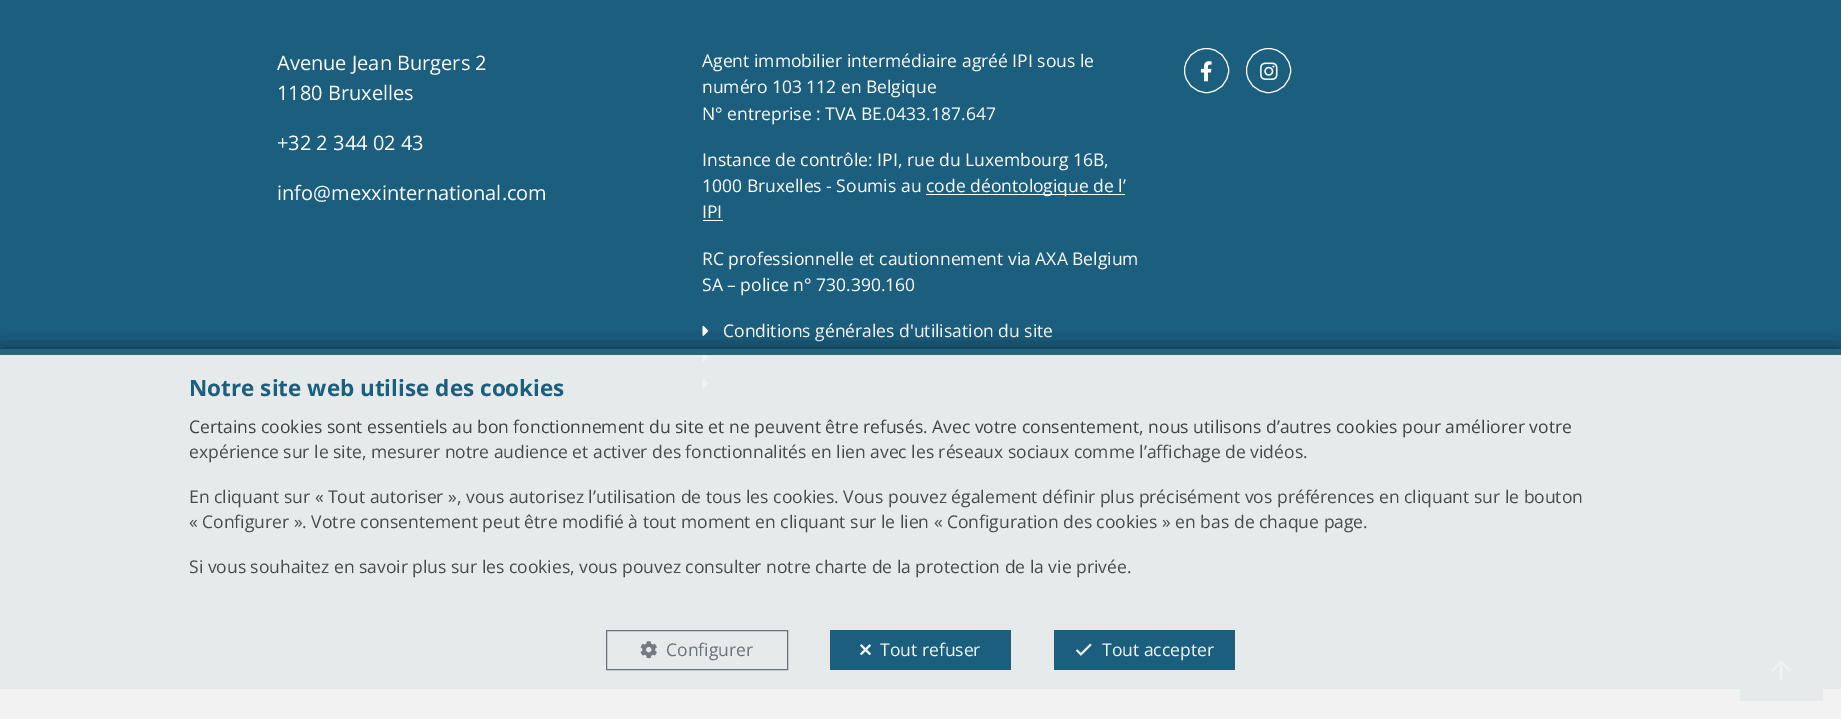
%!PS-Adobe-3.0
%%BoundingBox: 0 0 1841 719
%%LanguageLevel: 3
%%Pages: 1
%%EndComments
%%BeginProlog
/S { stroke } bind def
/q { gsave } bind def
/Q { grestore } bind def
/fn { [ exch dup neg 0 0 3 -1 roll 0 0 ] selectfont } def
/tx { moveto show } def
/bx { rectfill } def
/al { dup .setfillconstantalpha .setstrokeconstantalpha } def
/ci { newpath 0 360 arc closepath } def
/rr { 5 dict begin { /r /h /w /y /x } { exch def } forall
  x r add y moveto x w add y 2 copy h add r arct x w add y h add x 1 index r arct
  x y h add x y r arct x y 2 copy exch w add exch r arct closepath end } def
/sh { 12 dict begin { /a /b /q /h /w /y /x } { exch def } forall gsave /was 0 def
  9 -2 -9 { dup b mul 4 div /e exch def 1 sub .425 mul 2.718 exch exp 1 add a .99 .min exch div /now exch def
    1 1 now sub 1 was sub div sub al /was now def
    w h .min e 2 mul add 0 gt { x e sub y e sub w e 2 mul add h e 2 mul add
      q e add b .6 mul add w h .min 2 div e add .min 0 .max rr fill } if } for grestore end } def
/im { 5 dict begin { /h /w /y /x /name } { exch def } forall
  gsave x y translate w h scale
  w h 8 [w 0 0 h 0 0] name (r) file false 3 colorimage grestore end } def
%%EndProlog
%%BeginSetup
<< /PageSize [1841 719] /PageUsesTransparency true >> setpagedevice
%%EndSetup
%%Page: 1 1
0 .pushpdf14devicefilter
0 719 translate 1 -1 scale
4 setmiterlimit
0.949 setgray
0 0 1841 719 bx
0.106 0.369 0.494 setrgbcolor
0 0 1841 349 bx
0.902 0.918 0.922 setrgbcolor
0 349 1841 340 bx
/OpenSans-Regular 20 fn
1 setgray
(Avenue Jean Burgers 2) 277 70 tx
(1180 Bruxelles) 277 100 tx
(+32 2 344 02 43) 277 150 tx
(info@mexxinternational.com) 277 200 tx
/OpenSans-Regular 17.5 fn
(Agent immobilier intermédiaire agréé IPI sous le) 702 67 tx
(numéro 103 112 en Belgique) 702 93 tx
(N° entreprise : TVA BE.0433.187.647) 702 120 tx
(Instance de contrôle: IPI, rue du Luxembourg 16B,) 702 166 tx
(1000 Bruxelles - Soumis au) 702 192 tx
926 194 199 1 bx
(code déontologique de l’) 926 192 tx
(IPI) 702 218 tx
703 220 20 1 bx
(RC professionnelle et cautionnement via AXA Belgium) 702 265 tx
(SA – police n° 730.390.160) 702 291 tx
(image0.raw) 702 325 7 11 im
(Conditions générales d'utilisation du site) 723 337 tx
(image1.raw) 702 352 7 11 im
(image2.raw) 702 378 7 11 im
1206.5 70.5 22 ci S
(image3.raw) 1200 61 12 21 im
1268.5 70.5 22 ci S
(image4.raw) 1260 62 18 18 im
0.902 0.918 0.922 setrgbcolor
1740 689 83 12 bx
(image8.raw) 1771 660 20 21 im
q
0 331 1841 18 rectclip
0 setgray
0 356 1841 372 0 12.5 0.85 sh
Q
0.95 al
0.106 0.369 0.494 setrgbcolor
0 349 1841 6 bx
/OpenSans-Bold 22.5 fn
1 al
(Notre site web utilise des cookies) 189 396 tx
/OpenSans-Regular 17.5 fn
0.247 0.259 0.267 setrgbcolor
(Certains cookies sont essentiels au bon fonctionnement du site et ne peuvent être refusés. Avec votre consentement, nous utilisons d’autres cookies pour améliorer votre) 189 433 tx
0.286 0.29 0.29 setrgbcolor
(expérience sur le site, mesurer notre audience et activer des fonctionnalités en lien avec les réseaux sociaux comme l’affichage de vidéos.) 189 458 tx
(En cliquant sur « Tout autoriser », vous autorisez l’utilisation de tous les cookies. Vous pouvez également définir plus précisément vos préférences en cliquant sur le bouton) 189 503 tx
(« Configurer ». Votre consentement peut être modifié à tout moment en cliquant sur le lien « Configuration des cookies » en bas de chaque page.) 189 528 tx
(Si vous souhaitez en savoir plus sur les cookies, vous pouvez consulter notre charte de la protection de la vie privée) 189 573 tx
0.247 0.259 0.267 setrgbcolor
(.) 1127 573 tx
0.408 0.455 0.49 setrgbcolor
606.5 630.5 181 39 rectstroke
(image5.raw) 640 641 17 18 im
(Configurer) 666 656 tx
0.106 0.369 0.494 setrgbcolor
830 630 181 40 bx
(image6.raw) 860 644 11 12 im
0.957 0.969 0.976 setrgbcolor
(Tout refuser) 880 656 tx
0.106 0.369 0.494 setrgbcolor
1054 630 181 40 bx
(image7.raw) 1076 643 16 13 im
0.957 0.969 0.976 setrgbcolor
(Tout accepter) 1102 656 tx
.poppdf14devicefilter showpage
%%EOF
